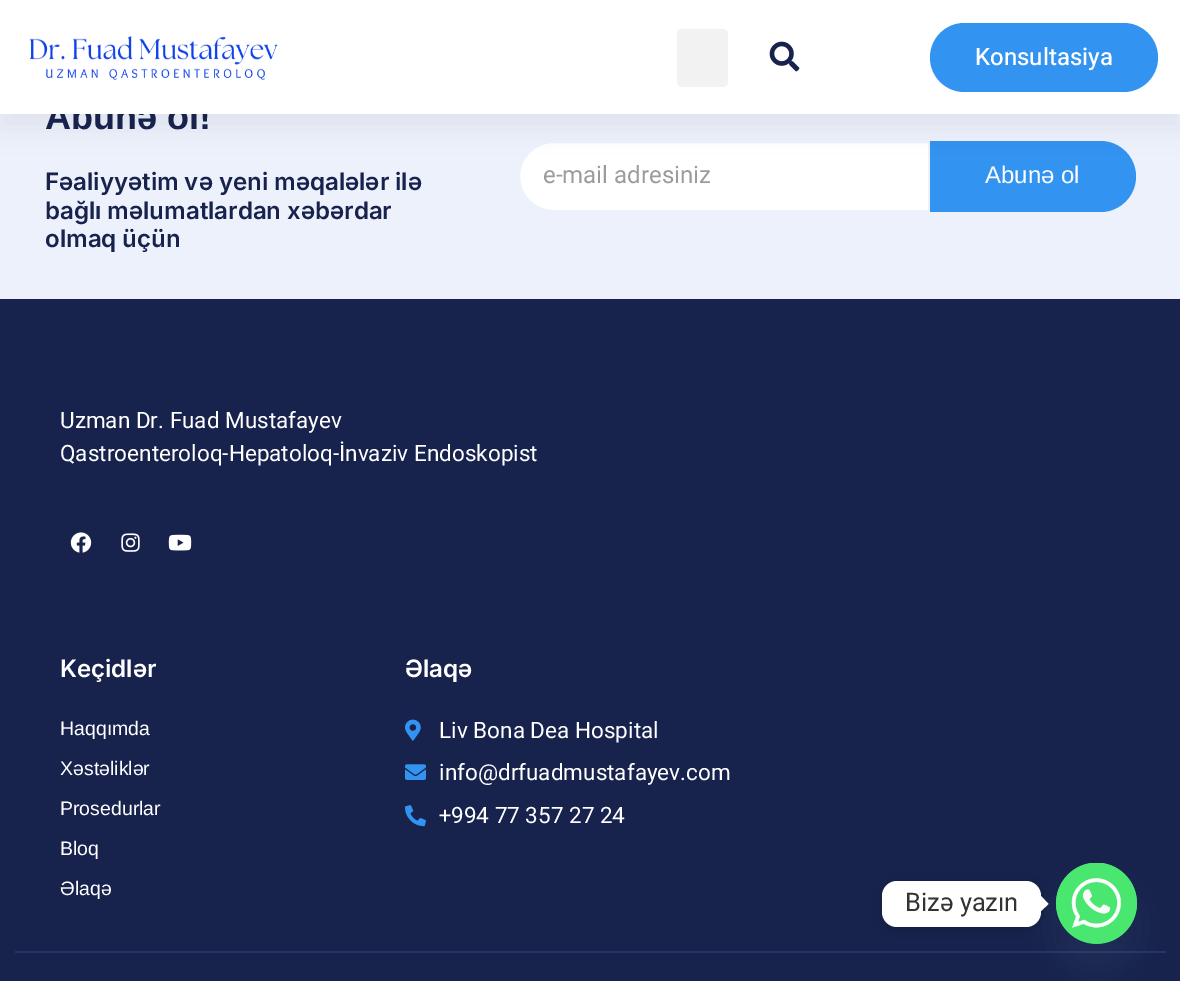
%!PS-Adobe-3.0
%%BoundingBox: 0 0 1180 981
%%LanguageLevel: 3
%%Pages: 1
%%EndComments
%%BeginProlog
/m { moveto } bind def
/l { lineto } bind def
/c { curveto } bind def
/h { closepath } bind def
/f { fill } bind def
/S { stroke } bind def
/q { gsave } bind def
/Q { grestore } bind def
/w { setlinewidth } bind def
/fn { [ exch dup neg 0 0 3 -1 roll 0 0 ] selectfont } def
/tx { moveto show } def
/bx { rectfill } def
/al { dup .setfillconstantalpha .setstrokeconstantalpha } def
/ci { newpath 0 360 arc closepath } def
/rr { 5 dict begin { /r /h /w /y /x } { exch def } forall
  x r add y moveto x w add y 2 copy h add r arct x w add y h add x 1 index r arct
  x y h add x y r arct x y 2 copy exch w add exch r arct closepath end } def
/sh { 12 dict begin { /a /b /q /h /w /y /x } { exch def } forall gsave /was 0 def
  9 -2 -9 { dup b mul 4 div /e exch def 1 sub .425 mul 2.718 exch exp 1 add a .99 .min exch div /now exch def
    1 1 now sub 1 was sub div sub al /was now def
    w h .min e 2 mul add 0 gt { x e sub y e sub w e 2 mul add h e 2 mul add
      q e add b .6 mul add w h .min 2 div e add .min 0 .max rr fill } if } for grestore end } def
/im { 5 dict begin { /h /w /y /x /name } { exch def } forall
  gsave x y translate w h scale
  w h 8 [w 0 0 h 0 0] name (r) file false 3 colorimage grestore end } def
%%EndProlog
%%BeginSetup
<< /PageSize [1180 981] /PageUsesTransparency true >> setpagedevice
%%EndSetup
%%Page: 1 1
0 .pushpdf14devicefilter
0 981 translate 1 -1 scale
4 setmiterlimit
0.929 0.945 0.988 setrgbcolor
0 0 1180 981 bx
1 setgray
553.5 142 m 929 142 l 929 211 l 553.5 211 l 534.5 211 519 195.5 519 176.5 c 519 157.5 534.5 142 553.5 142 c h q f Q
0.929 0.945 0.988 setrgbcolor
2 w
S
0.2 0.576 0.941 setrgbcolor
930 141 m 1100.5 141 l 1120 141 1136 157 1136 176.5 c 1136 196 1120 212 1100.5 212 c 930 212 l h f
0 setgray
0 15 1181 114 0 15 0.05 sh
/LiberationSans-Bold 36 fn
0.09 0.133 0.302 setrgbcolor
(Abunə ol!) 45 129 tx
1 setgray
0 0 1180 114 bx
(image0.raw) 30 36 248 44 im
0.949 setgray
677 29 51 58 5 rr f
(image1.raw) 769 41 31 31 im
0.2 0.576 0.941 setrgbcolor
930 23 228 69 34.5 rr f
/Heebo-Medium 24 fn
1 setgray
(Konsultasiya) 975 65 tx
/Inter-SemiBold 24 fn
0.09 0.133 0.302 setrgbcolor
(Fəaliyyətim və yeni məqalələr ilə) 45 190 tx
(bağlı məlumatlardan xəbərdar) 45 219 tx
(olmaq üçün) 45 247 tx
/Heebo-Regular 24 fn
0.596 0.608 0.624 setrgbcolor
(e-mail adresiniz) 543 183 tx
/LiberationSans-Regular 24 fn
1 setgray
(Abunə ol) 985 183 tx
0.09 0.133 0.302 setrgbcolor
0 299 1180 682 bx
0.153 0.204 0.396 setrgbcolor
15 951 1151 2 bx
/Heebo-Regular 22.5 fn
1 setgray
(Uzman Dr. Fuad Mustafayev) 60 428 tx
(Qastroenteroloq-Hepatoloq-İnvaziv Endoskopist) 60 461 tx
(image2.raw) 70 532 22 21 im
(image3.raw) 121 533 19 19 im
(image4.raw) 168 534 24 17 im
/Inter-SemiBold 24 fn
(Keçidlər) 60 677 tx
/LiberationSans-Regular 19.5 fn
(Haqqımda) 60 735 tx
(Xəstəliklər) 60 775 tx
(Prosedurlar) 60 815 tx
(Bloq) 60 855 tx
(Əlaqə) 60 895 tx
/Inter-SemiBold 24 fn
(Əlaqə) 405 677 tx
(image5.raw) 405 719 16 22 im
/Heebo-Regular 22.5 fn
(Liv Bona Dea Hospital) 439 738 tx
(image6.raw) 405 764 21 16 im
(info@drfuadmustafayev.com) 439 780 tx
(image7.raw) 405 805 21 22 im
(+994 77 357 27 24) 439 823 tx
0.286 0.408 0.494 setrgbcolor
1056 887 81 81 40.5 18 0.16 sh
0.286 0.902 0.439 setrgbcolor
1096.5 903.5 40.5 ci f
(image8.raw) 1056 863 81 81 im
0 setgray
882 882 159 47 15 6 0.15 sh
1 setgray
882 881 159 46 15 rr f
/Roboto-Regular 25.5 fn
0.2 setgray
(Bizə yazın) 905 911 tx
1 setgray
1041 911 m 1041 896 l 1048.5 904 l h f
.poppdf14devicefilter showpage
%%EOF
